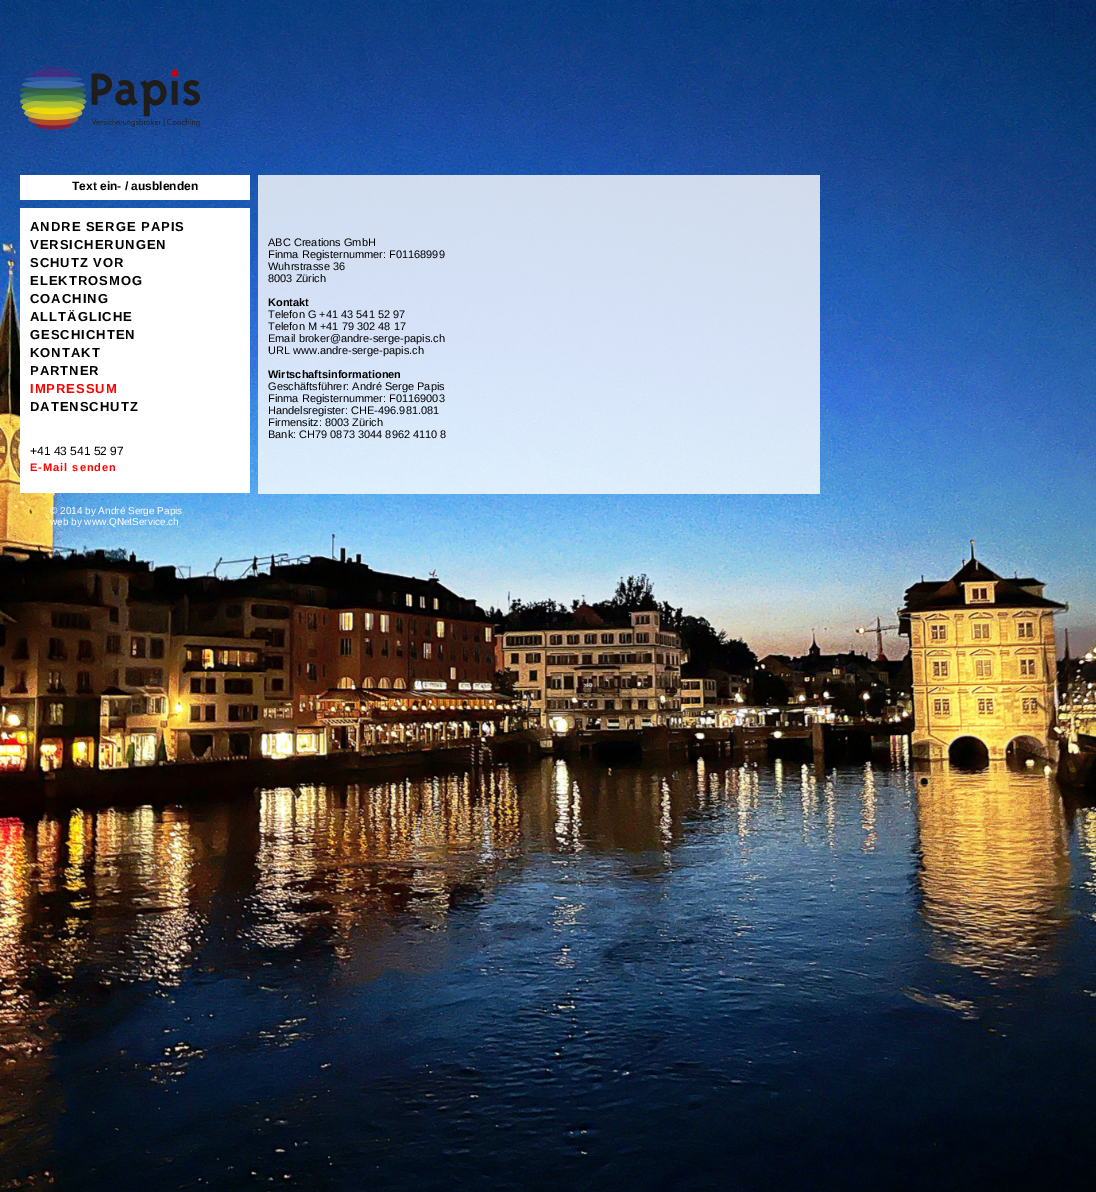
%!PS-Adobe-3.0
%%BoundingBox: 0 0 1096 1192
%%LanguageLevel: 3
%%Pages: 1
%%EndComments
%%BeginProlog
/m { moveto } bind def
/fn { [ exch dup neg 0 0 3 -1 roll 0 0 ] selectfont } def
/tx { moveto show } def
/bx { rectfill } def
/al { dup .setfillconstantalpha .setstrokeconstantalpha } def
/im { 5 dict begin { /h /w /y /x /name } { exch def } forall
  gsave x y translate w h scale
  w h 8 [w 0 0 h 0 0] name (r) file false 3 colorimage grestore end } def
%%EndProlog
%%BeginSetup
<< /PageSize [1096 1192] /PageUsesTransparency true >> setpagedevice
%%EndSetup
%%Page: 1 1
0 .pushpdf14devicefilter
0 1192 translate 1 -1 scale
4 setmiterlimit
1 setgray
0 0 1096 1192 bx
(image0.raw) 0 0 1096 1192 im
(image1.raw) 20 66 180 64 im
20 175 230 25 bx
/LiberationSans-Bold 12 fn
0 setgray
(Text ein- / ausblenden) 72 190 tx
1 setgray
20 208 230 285 bx
/LiberationSans-Bold 13 fn
0 setgray
30 231 m 1 0 (ANDRE SERGE PAPIS) ashow
30 249 m 1 0 (VERSICHERUNGEN) ashow
30 267 m 1 0 (SCHUTZ VOR) ashow
30 285 m 1 0 (ELEKTROSMOG) ashow
30 303 m 1 0 (COACHING) ashow
30 321 m 1 0 (ALLTÄGLICHE) ashow
30 339 m 1 0 (GESCHICHTEN) ashow
30 357 m 1 0 (KONTAKT) ashow
30 375 m 1 0 (PARTNER) ashow
1 0 0 setrgbcolor
30 393 m 1 0 (IMPRESSUM) ashow
0 setgray
30 411 m 1 0 (DATENSCHUTZ) ashow
/LiberationSans-Regular 12 fn
(+41 43 541 52 97) 30 455 tx
/LiberationSans-Bold 11 fn
1 0 0 setrgbcolor
30 471 m 1 0 (E-Mail senden) ashow
0.8 al
1 setgray
258 175 562 319 bx
/LiberationSans-Regular 11 fn
1 al
0 setgray
(ABC Creations GmbH) 268 246 tx
(Finma Registernummer: F01168999) 268 258 tx
(Wuhrstrasse 36) 268 270 tx
(8003 Zürich) 268 282 tx
/LiberationSans-Bold 11 fn
(Kontakt) 268 306 tx
/LiberationSans-Regular 11 fn
(Telefon G +41 43 541 52 97) 268 318 tx
(Telefon M +41 79 302 48 17) 268 330 tx
(Email broker@andre-serge-papis.ch) 268 342 tx
(URL www.andre-serge-papis.ch) 268 354 tx
/LiberationSans-Bold 11 fn
(Wirtschaftsinformationen) 268 378 tx
/LiberationSans-Regular 11 fn
(Geschäftsführer: André Serge Papis) 268 390 tx
(Finma Registernummer: F01169003) 268 402 tx
(Handelsregister: CHE-496.981.081) 268 414 tx
(Firmensitz: 8003 Zürich) 268 426 tx
(Bank: CH79 0873 3044 8962 4110 8) 268 438 tx
/LiberationSans-Regular 10 fn
1 setgray
(© 2014 by André Serge Papis) 50 514 tx
(web by www.QNetService.ch) 50 525 tx
.poppdf14devicefilter showpage
%%EOF
